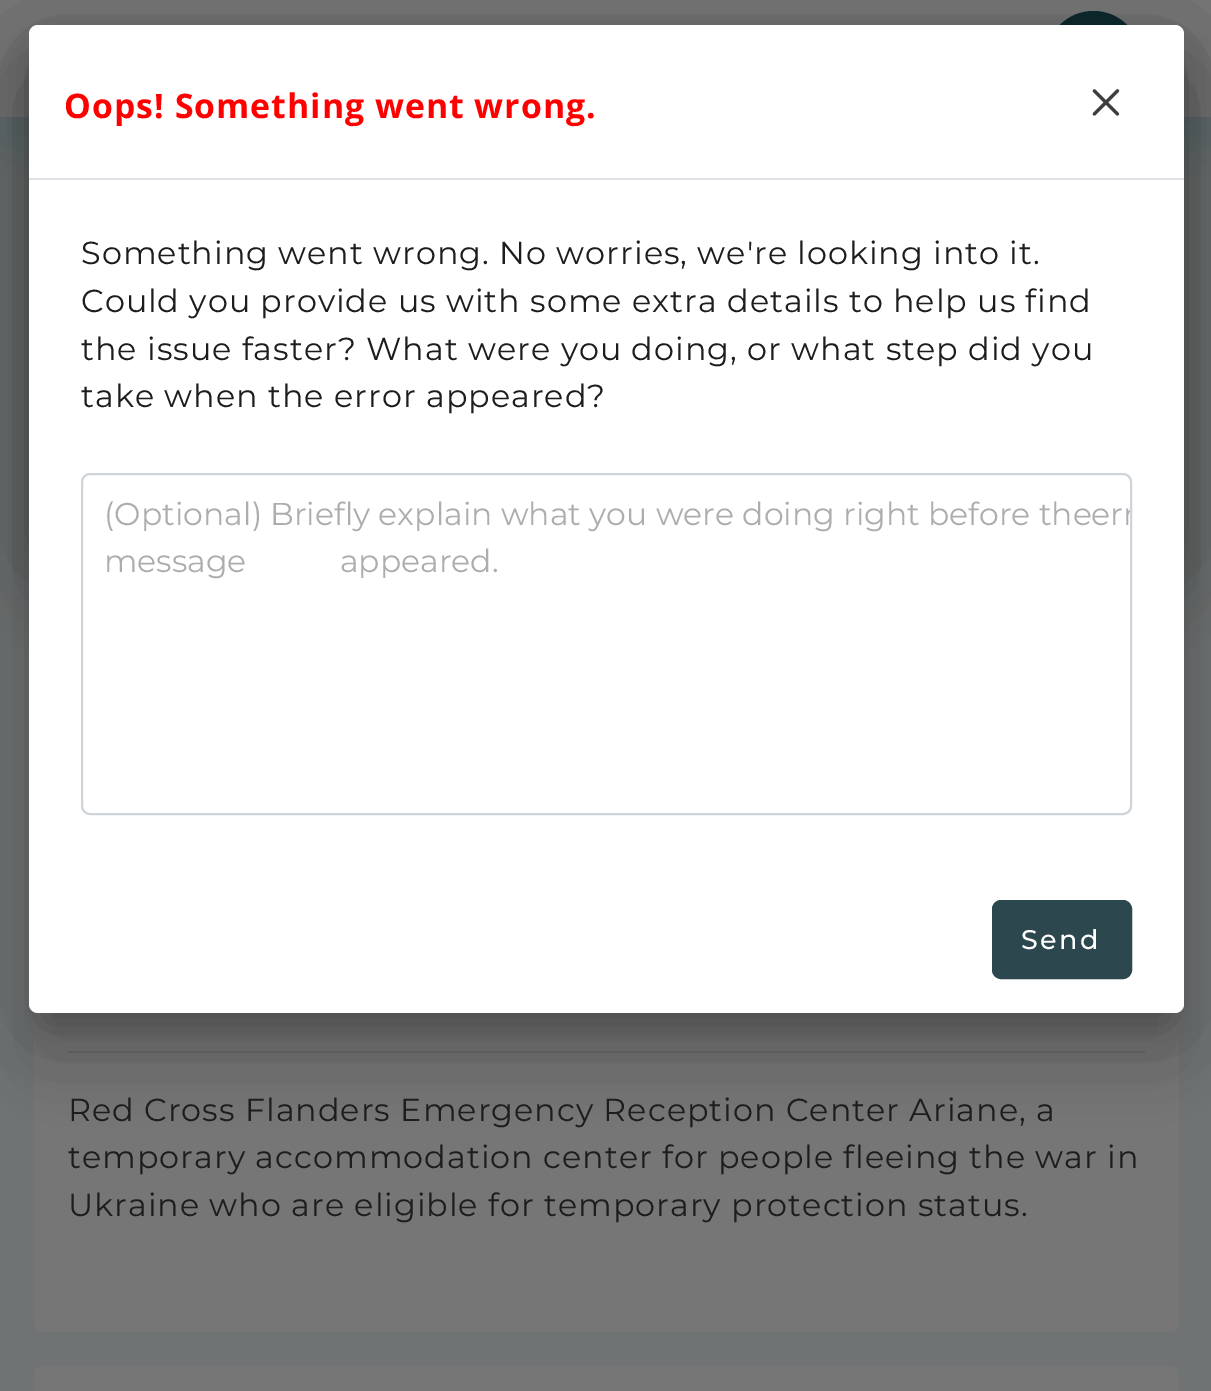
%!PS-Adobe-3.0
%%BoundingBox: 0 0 1211 1391
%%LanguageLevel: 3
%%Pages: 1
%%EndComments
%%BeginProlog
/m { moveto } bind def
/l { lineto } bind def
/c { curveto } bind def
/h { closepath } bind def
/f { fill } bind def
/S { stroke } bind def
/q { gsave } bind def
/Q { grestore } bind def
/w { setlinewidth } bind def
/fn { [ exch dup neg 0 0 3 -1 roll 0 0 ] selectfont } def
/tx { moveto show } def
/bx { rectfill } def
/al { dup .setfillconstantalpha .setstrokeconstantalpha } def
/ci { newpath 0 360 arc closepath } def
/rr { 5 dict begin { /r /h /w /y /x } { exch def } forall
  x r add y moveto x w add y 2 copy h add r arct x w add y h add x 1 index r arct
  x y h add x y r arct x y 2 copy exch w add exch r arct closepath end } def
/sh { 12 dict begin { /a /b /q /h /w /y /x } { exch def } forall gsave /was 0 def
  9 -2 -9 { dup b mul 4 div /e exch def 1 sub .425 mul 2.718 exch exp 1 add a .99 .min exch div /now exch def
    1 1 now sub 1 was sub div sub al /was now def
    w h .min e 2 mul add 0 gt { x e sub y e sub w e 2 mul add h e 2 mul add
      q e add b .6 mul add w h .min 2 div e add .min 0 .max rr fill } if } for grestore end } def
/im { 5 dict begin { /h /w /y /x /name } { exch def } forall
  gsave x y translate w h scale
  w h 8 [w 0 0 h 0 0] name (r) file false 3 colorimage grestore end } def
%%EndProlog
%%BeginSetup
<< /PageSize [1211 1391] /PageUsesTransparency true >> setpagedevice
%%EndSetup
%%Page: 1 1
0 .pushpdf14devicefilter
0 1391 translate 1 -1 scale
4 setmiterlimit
0.463 setgray
0 0 1211 1391 bx
0.439 0.451 0.451 setrgbcolor
0 117 1211 1274 bx
q
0 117 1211 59 rectclip
0.18 0.322 0.341 setrgbcolor
0 27 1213 117 0 27 0.2 sh
Q
0.047 0.161 0.184 setrgbcolor
1093.5 58.5 47.5 ci f
0 setgray
11 27 1191 556 27 52 0.12 sh
23 72 1167 533 16 43 0.14 sh
45 65 1123 489 0 17 0.2 sh
0.463 setgray
34 902 1145 430 9 rr f
0.416 setgray
68 1051 1077 2 bx
0 setgray
11 27 1191 1024 27 52 0.12 sh
23 72 1167 1001 16 43 0.14 sh
45 65 1123 957 0 17 0.2 sh
1 setgray
38 25 m 1175 25 l 1180 25 1184 29 1184 34 c 1184 180 l 29 180 l 29 34 l 29 29 33 25 38 25 c h f
0.871 0.886 0.902 setrgbcolor
29 178 1155 2 bx
/OpenSans-Bold 33.8 fn
1 0 0 setrgbcolor
64 118 m 1.02 0 (Oops! Something went wrong.) ashow
(image0.raw) 1092 89 28 27 im
1 setgray
29 180 1155 686 bx
/Montserrat-Regular 31.8 fn
0.114 setgray
81 264 m 1.02 0 (Something went wrong. No worries, we're looking into it.) ashow
81 312 m 1.02 0 (Could you provide us with some extra details to help us find) ashow
81 360 m 1.02 0 (the issue faster? What were you doing, or what step did you) ashow
81 407 m 1.02 0 (take when the error appeared?) ashow
0.808 0.831 0.855 setrgbcolor
2 w
82 474 1049 340 8 rr S
/Montserrat-Regular 31.5 fn
0.678 setgray
(\(Optional\) Briefly explain what you were doing right before the) 104 525 tx
q
83 475 1047 337 7 rr clip newpath
(err) 1091 525 tx
Q
104 572 m 85 0 32 (message appeared.) widthshow
1 setgray
29 866 m 1184 866 l 1184 1004 l 1184 1009 1180 1013 1175 1013 c 38 1013 l 33 1013 29 1009 29 1004 c h f
0.173 0.282 0.306 setrgbcolor
993 901 138 77 8 rr q f Q
S
/Montserrat-Medium 27 fn
1 setgray
1021 949 m 2.5 0 (Send) ashow
/Montserrat-Regular 31.8 fn
0.114 setgray
68 1121 m 1.02 0 (Red Cross Flanders Emergency Reception Center Ariane, a) ashow
68 1168 m 1.02 0 (temporary accommodation center for people fleeing the war in) ashow
68 1216 m 1.02 0 (Ukraine who are eligible for temporary protection status.) ashow
0.463 setgray
43 1366 m 1170 1366 l 1175 1366 1179 1370 1179 1375 c 1179 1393 l 34 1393 l 34 1375 l 34 1370 38 1366 43 1366 c h f
.poppdf14devicefilter showpage
%%EOF
